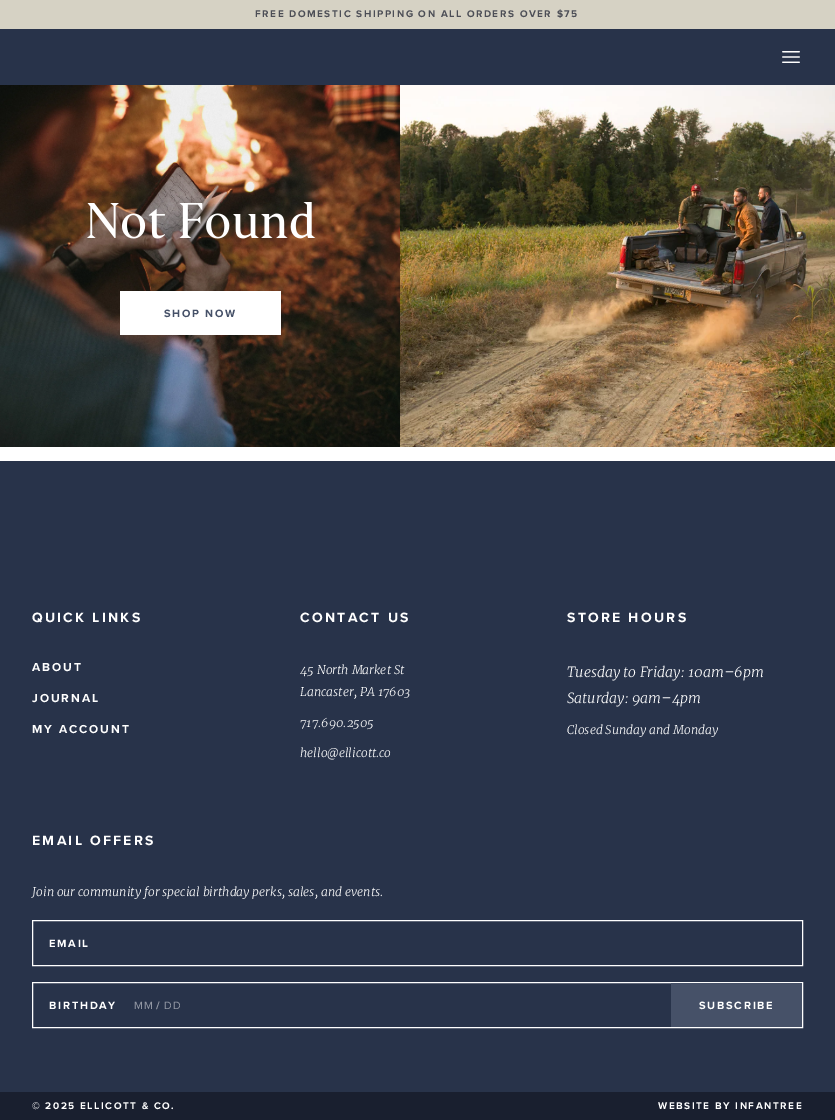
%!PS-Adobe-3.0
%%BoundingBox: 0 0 835 1120
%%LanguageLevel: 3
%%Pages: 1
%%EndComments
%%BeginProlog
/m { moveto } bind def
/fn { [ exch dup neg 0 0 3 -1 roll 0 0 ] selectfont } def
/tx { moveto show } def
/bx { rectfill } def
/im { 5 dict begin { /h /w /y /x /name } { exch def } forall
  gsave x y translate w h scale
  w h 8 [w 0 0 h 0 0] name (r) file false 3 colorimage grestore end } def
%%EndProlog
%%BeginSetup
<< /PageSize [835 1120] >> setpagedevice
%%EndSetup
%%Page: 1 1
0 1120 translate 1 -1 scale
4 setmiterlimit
1 setgray
0 0 835 1120 bx
0.839 0.824 0.769 setrgbcolor
0 0 835 29 bx
/ProximaNova-Bold 10 fn
0.298 0.306 0.337 setrgbcolor
255 17 m 1.55 0 (FREE DOMESTIC SHIPPING ON ALL ORDERS OVER $75) ashow
0.157 0.2 0.29 setrgbcolor
0 29 835 56 bx
(image0.raw) 782 51 18 12 im
(image1.raw) 0 85 400 362 im
(image2.raw) 87 202 229 37 im
1 setgray
120 291 161 44 bx
/ProximaNova-Bold 11 fn
0.275 0.318 0.408 setrgbcolor
164 317 m 1.75 0 (SHOP NOW) ashow
(image3.raw) 400 85 435 362 im
0.157 0.2 0.29 setrgbcolor
0 461 835 631 bx
/ProximaNova-Bold 14 fn
1 setgray
32 622 m 2.25 0 (QUICK LINKS) ashow
/ProximaNova-Bold 12 fn
32 671 m 1.9 0 (ABOUT) ashow
32 702 m 1.9 0 (JOURNAL) ashow
32 733 m 1.9 0 (MY ACCOUNT) ashow
/ProximaNova-Bold 14 fn
300 622 m 2.25 0 (CONTACT US) ashow
/Merriweather-LightItalic 12 fn
(45 North Market St) 300 674 tx
(Lancaster, PA 17603) 300 696 tx
(717.690.2505) 300 727 tx
(hello@ellicott.co) 300 757 tx
/ProximaNova-Bold 14 fn
567 622 m 2.25 0 (STORE HOURS) ashow
/Merriweather-LightItalic 14 fn
(Tuesday to Friday: 10am–6pm) 567 677 tx
(Saturday: 9am–4pm) 567 703 tx
/Merriweather-LightItalic 12 fn
(Closed Sunday and Monday) 567 734 tx
/ProximaNova-Bold 14 fn
32 845 m 2.25 0 (EMAIL OFFERS) ashow
/Merriweather-LightItalic 12 fn
(Join our community for special birthday perks, sales, and events.) 32 896 tx
32.5 920.5 770 45 rectstroke
/ProximaNova-Bold 11 fn
49 947 m 1.75 0 (EMAIL) ashow
32.5 982.5 770 45 rectstroke
49 1009 m 1.75 0 (BIRTHDAY) ashow
/ProximaNova-Regular 11 fn
0.58 0.6 0.647 setrgbcolor
134 1009 m 1 0 (MM) ashow
/ProximaNova-Bold 11 fn
156 1009 m 1.75 0 (/) ashow
/ProximaNova-Regular 11 fn
164 1009 m 1 0 (DD) ashow
0.275 0.318 0.408 setrgbcolor
671 983 131 44 bx
/ProximaNova-Bold 11 fn
1 setgray
699 1009 m 1.75 0 (SUBSCRIBE) ashow
0.098 0.122 0.184 setrgbcolor
0 1092 835 28 bx
/ProximaNova-Bold 10 fn
1 setgray
32 1109 m 1.55 0 (© 2025 ELLICOTT & CO.) ashow
658 1109 m 1.55 0 (WEBSITE BY INFANTREE) ashow
showpage
%%EOF
